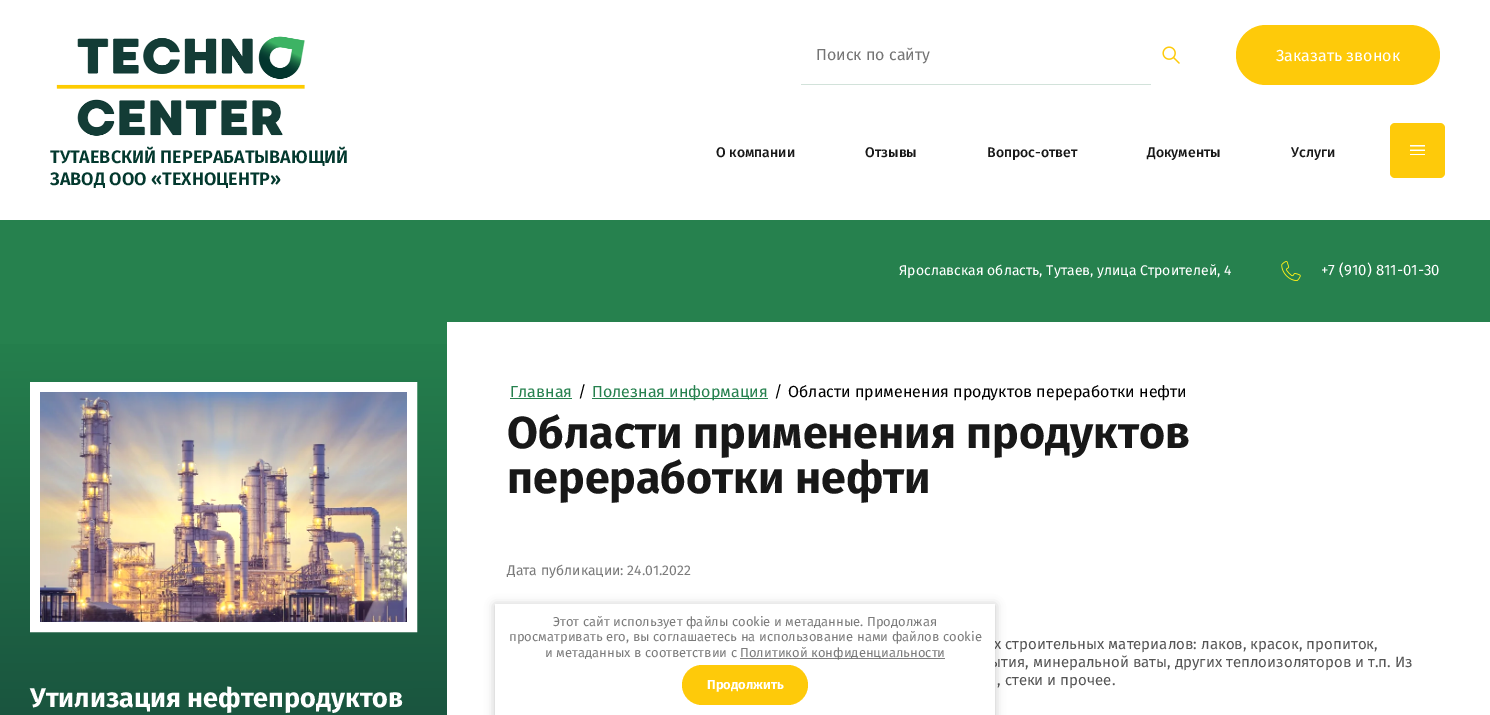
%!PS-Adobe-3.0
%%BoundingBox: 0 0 1490 715
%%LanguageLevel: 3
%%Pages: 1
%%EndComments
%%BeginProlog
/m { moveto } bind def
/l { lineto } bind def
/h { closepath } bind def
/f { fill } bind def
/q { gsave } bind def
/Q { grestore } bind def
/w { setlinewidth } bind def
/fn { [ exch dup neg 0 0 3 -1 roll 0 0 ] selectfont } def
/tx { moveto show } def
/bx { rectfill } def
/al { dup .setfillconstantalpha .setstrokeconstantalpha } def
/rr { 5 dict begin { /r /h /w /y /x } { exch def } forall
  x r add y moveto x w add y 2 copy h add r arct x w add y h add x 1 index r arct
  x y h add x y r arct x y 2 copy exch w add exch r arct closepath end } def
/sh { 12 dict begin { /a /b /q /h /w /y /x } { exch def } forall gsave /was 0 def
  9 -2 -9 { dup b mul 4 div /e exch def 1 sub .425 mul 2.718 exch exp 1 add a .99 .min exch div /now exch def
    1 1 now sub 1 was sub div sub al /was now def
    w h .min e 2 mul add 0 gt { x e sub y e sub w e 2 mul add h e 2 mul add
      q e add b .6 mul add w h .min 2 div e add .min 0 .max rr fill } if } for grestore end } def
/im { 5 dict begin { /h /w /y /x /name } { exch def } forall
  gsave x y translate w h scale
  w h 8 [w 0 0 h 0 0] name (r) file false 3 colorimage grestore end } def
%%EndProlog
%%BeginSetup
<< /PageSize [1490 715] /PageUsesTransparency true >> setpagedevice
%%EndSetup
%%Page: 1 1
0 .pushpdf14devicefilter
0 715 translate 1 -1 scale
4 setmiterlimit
0.149 0.506 0.306 setrgbcolor
0 0 1490 715 bx
1 setgray
0 0 1490 220 bx
0.824 0.886 0.855 setrgbcolor
801 84 350 1 bx
/FiraSans-Regular 16 fn
0.459 setgray
(Поиск по сайту) 816 60 tx
(image0.raw) 1162 46 18 18 im
0.996 0.792 0.039 setrgbcolor
1236 25 204 60 30 rr f
1 setgray
(Заказать звонок) 1276 61 tx
/FiraSans-Medium 14 fn
0.094 setgray
(О компании) 716 157 tx
(Отзывы) 865 157 tx
(Вопрос-ответ) 987 157 tx
(Документы) 1147 157 tx
(Услуги) 1291 157 tx
0.996 0.792 0.039 setrgbcolor
1390 123 55 55 5 rr f
(image1.raw) 1410 145 15 10 im
(image2.raw) 56 36 249 100 im
/FiraSans-SemiBold 18 fn
0.012 0.224 0.18 setrgbcolor
(ТУТАЕВСКИЙ ПЕРЕРАБАТЫВАЮЩИЙ) 50 163 tx
(ЗАВОД ООО «ТЕХНОЦЕНТР») 50 185 tx
/FiraSans-Regular 14 fn
1 setgray
(Ярославская область, Тутаев, улица Строителей, 4) 899 275 tx
(image3.raw) 1281 261 20 20 im
/FiraSans-Regular 15 fn
(+7 \(910\) 811-01-30) 1321 275 tx
447 322 1043 393 bx
/FiraSans-Regular 16 fn
0.149 0.506 0.306 setrgbcolor
(Главная) 510 397 tx
510 398 62 1 bx
0 setgray
(/) 578 397 tx
0.149 0.506 0.306 setrgbcolor
592 398 176 1 bx
(Полезная информация) 592 397 tx
0 setgray
(/) 774 397 tx
(Области применения продуктов переработки нефти) 788 397 tx
/FiraSans-Bold 44.75 fn
0.094 setgray
(Области применения продуктов) 507 448 tx
(переработки нефти) 507 493 tx
/FiraSans-Regular 14 fn
0.482 setgray
(Дата публикации: 24.01.2022) 507 575 tx
/FiraSans-Regular 15 fn
0.333 setgray
(х строительных материалов: лаков, красок, пропиток,) 994 649 tx
(ытия, минеральной ваты, других теплоизоляторов и т.п. Из) 990 667 tx
(, стеки и прочее.) 997 685 tx
q 0 344 m 447 344 l 447 715 l 0 715 l h clip newpath
<< /ShadingType 2 /ColorSpace /DeviceRGB /Coords [223 322 224 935] /Extend [true true] /Function << /FunctionType 2 /Domain [0 1] /C0 [0.149 0.506 0.306] /C1 [0.075 0.235 0.212] /N 1 >> >> shfill Q
1 setgray
10 w
35 387 377 240 rectstroke
(image4.raw) 40 392 367 230 im
/FiraSans-Bold 27 fn
(Утилизация нефтепродуктов) 30 707 tx
0 setgray
495 605 500 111 0 5 0.23 sh
1 setgray
495 604 500 111 bx
/FiraSans-Regular 13 fn
0.482 setgray
(Этот сайт использует файлы cookie и метаданные. Продолжая) 553 626 tx
(просматривать его, вы соглашаетесь на использование нами файлов cookie) 509 641 tx
(и метаданных в соответствии с) 545 657 tx
0.502 setgray
740 658 205 1 bx
0.482 setgray
(Политикой конфиденциальности) 740 657 tx
0.996 0.792 0.039 setrgbcolor
682 665 126 40 20 rr f
/FiraSans-Bold 13 fn
1 setgray
(Продолжить) 707 689 tx
.poppdf14devicefilter showpage
%%EOF
